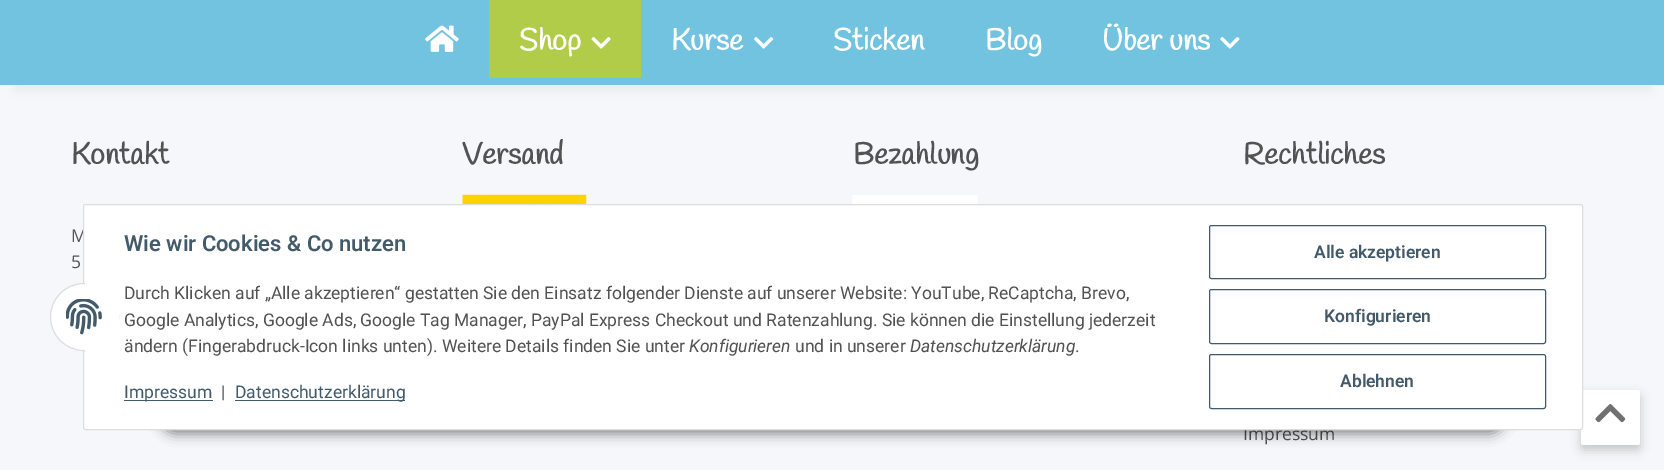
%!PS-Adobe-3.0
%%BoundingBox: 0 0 1664 470
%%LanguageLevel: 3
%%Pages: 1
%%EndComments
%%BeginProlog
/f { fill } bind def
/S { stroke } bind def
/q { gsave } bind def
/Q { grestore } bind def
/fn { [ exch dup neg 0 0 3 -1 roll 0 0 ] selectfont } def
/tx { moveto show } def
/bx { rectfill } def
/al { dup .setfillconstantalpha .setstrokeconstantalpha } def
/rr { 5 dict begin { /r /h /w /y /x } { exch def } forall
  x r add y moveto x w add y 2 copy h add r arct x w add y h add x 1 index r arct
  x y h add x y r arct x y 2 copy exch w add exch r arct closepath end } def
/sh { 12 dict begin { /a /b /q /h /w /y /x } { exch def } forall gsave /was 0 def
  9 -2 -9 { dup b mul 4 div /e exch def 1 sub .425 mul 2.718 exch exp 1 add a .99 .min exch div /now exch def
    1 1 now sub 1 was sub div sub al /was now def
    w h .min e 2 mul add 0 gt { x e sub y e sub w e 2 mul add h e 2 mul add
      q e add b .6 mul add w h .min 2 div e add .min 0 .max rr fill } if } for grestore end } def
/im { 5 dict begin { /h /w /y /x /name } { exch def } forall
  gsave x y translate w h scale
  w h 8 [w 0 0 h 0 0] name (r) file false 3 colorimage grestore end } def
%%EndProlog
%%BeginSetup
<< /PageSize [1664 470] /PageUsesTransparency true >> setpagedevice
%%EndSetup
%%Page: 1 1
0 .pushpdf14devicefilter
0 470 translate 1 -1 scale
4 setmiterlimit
0.961 0.969 0.98 setrgbcolor
0 0 1664 470 bx
0 setgray
15 35 1635 55 0 5.5 0.06 sh
0.443 0.765 0.878 setrgbcolor
0 0 1664 85 bx
(image0.raw) 425 25 34 27 im
0.694 0.8 0.286 setrgbcolor
489 0 152 78 bx
/Handlee-Bold 30 fn
1 setgray
(Shop) 519 50 tx
(image1.raw) 591 37 20 12 im
(Kurse) 671 50 tx
(image2.raw) 754 37 20 12 im
(Sticken) 833 50 tx
(Blog) 985 50 tx
(Über uns) 1102 50 tx
(image3.raw) 1220 37 20 12 im
0.322 setgray
(Kontakt) 71 164 tx
/OpenSans-Regular 17.5 fn
(M) 71 242 tx
(5) 71 268 tx
/Handlee-Bold 30 fn
(Versand) 462 164 tx
(image4.raw) 462 194 125 10 im
(Bezahlung) 853 164 tx
(image5.raw) 852 195 126 9 im
(Rechtliches) 1243 164 tx
/OpenSans-Regular 17.5 fn
(Impressum) 1243 440 tx
0 setgray
1581 395 59 55 2.5 5 0.2 sh
1 setgray
1581 390 59 55 2.5 rr f
(image6.raw) 1595 404 31 19 im
0 setgray
159 394 1347 40 20 6 0.45 sh
1 setgray
83.5 204.5 1499 225 2 rr q f Q
0.867 setgray
S
1 setgray
50.5 283.5 68 67 33.5 rr q f Q
0.867 setgray
S
1 setgray
85 283 34 68 bx
(image7.raw) 66 299 36 36 im
/Roboto-SemiBold 22 fn
0.263 0.353 0.42 setrgbcolor
(Wie wir Cookies & Co nutzen) 124 251 tx
/Roboto-Regular 17.5 fn
0.322 setgray
(Durch Klicken auf „Alle akzeptieren“ gestatten Sie den Einsatz folgender Dienste auf unserer Website: YouTube, ReCaptcha, Brevo,) 124 299 tx
(Google Analytics, Google Ads, Google Tag Manager, PayPal Express Checkout und Ratenzahlung. Sie können die Einstellung jederzeit) 124 326 tx
(ändern \(Fingerabdruck-Icon links unten\). Weitere Details finden Sie unter) 124 352 tx
/Roboto-Italic 17.5 fn
(Konfigurieren) 689 352 tx
/Roboto-Regular 17.5 fn
(und in unserer) 795 352 tx
/Roboto-Italic 17.5 fn
(Datenschutzerklärung) 910 352 tx
/Roboto-Regular 17.5 fn
(.) 1075 352 tx
0.263 0.353 0.42 setrgbcolor
124 400 89 1 bx
(Impressum) 124 398 tx
0.322 setgray
(|) 221 398 tx
0.263 0.353 0.42 setrgbcolor
235 400 170 1 bx
(Datenschutzerklärung) 235 398 tx
1209.5 225.5 336 53 2 rr S
/Roboto-SemiBold 17.5 fn
(Alle akzeptieren) 1314 258 tx
1209.5 289.5 336 54 2 rr S
(Konfigurieren) 1324 322 tx
1209.5 354.5 336 54 2 rr S
(Ablehnen) 1340 387 tx
.poppdf14devicefilter showpage
%%EOF
